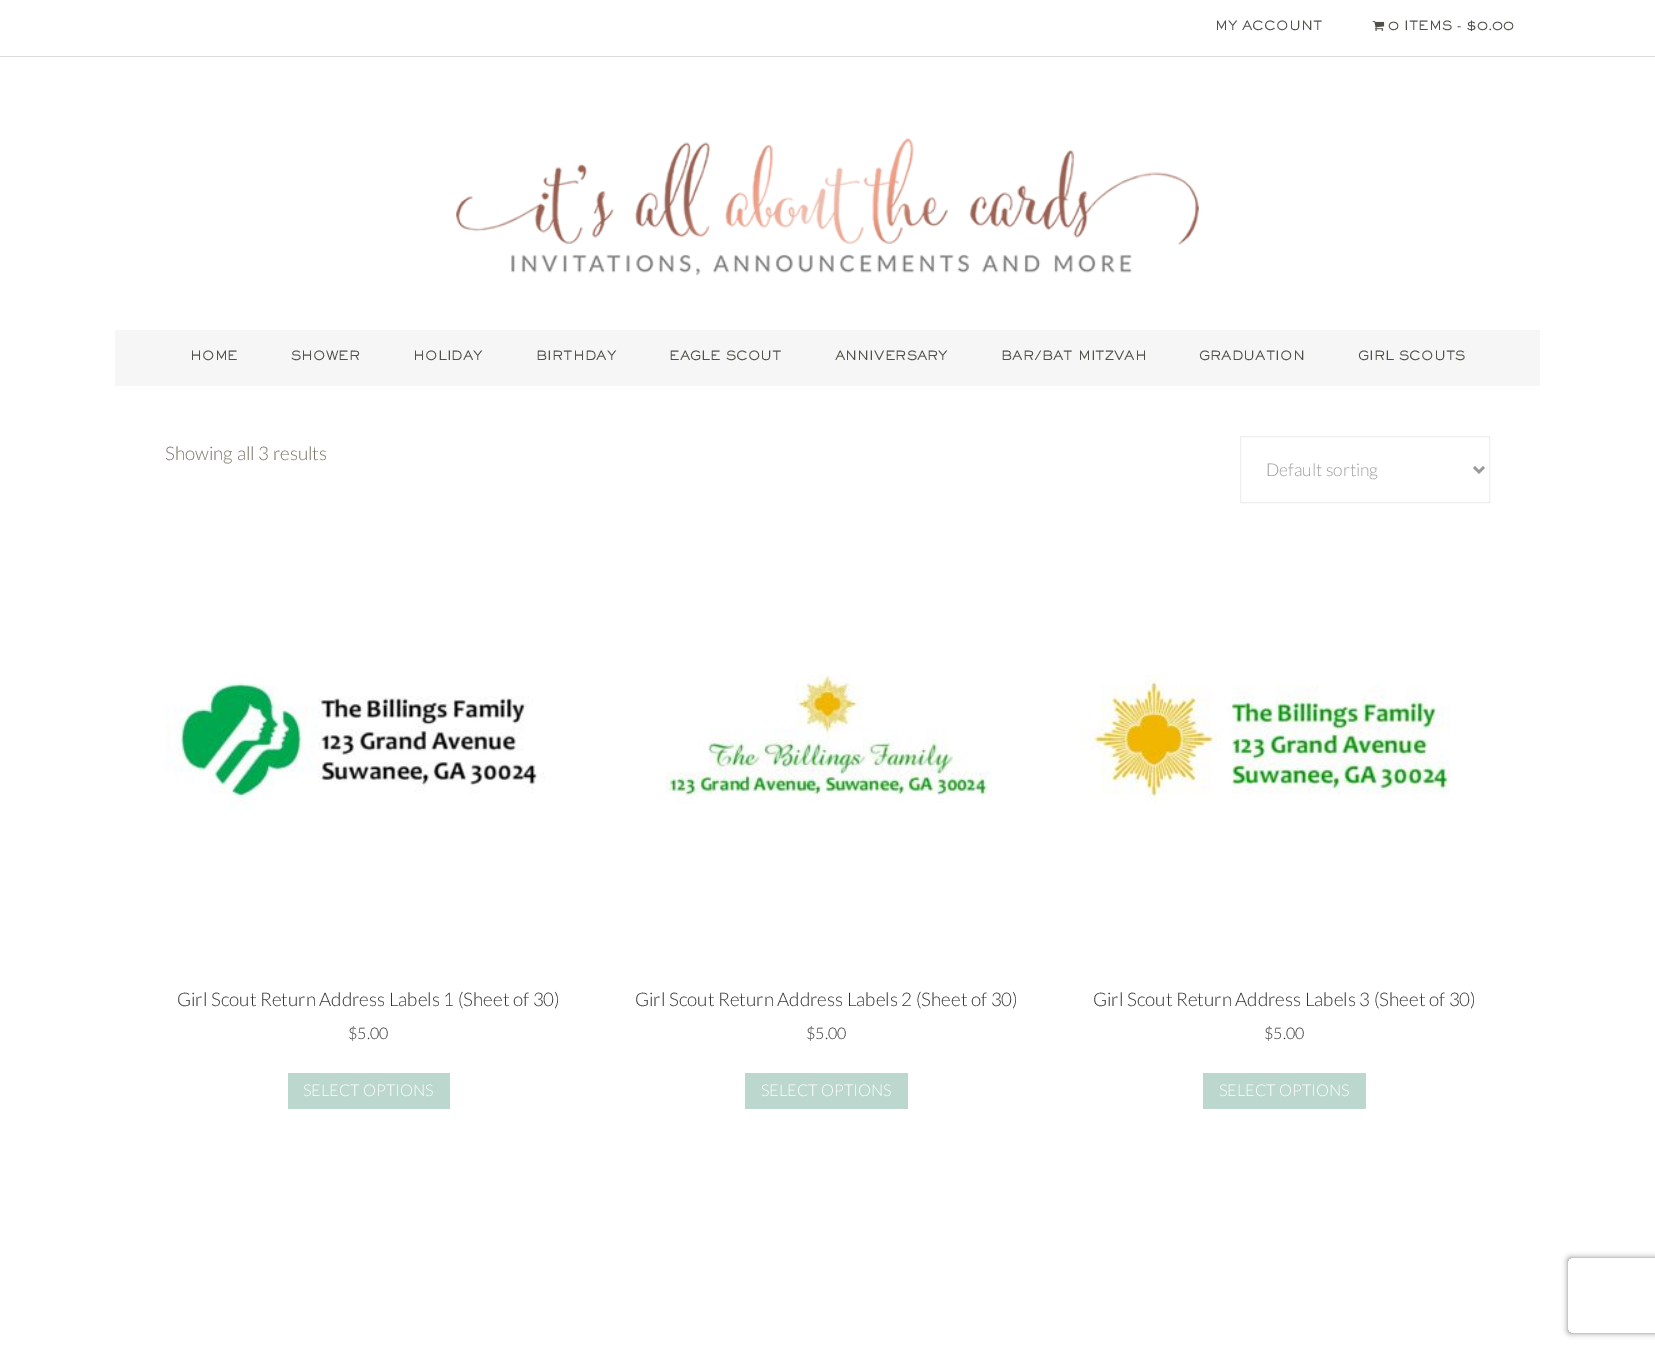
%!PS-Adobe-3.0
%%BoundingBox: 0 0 1655 1350
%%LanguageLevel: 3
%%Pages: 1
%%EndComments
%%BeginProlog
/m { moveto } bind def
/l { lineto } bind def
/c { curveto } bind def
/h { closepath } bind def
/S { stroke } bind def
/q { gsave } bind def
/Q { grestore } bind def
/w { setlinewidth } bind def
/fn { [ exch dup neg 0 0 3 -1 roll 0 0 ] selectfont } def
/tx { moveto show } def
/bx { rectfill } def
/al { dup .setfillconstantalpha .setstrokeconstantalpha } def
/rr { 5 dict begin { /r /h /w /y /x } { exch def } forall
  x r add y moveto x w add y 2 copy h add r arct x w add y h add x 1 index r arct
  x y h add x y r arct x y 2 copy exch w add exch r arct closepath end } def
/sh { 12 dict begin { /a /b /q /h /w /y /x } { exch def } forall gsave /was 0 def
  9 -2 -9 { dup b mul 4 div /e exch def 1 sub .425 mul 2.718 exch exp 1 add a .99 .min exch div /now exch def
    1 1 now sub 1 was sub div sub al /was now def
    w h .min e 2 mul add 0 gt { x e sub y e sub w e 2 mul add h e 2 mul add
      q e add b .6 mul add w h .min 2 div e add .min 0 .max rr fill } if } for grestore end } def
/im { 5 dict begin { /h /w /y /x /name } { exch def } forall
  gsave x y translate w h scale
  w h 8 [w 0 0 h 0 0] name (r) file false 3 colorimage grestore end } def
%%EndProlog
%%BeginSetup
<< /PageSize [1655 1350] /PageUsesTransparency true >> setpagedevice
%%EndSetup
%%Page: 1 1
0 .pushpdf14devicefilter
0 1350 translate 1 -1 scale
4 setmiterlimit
1 setgray
0 0 1655 1350 bx
0.867 setgray
0 56 1655 1 bx
/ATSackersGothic-Medium 12.5 fn
0.318 0.31 0.286 setrgbcolor
(MY ACCOUNT) 1215 30 tx
(image0.raw) 1372 21 13 10 im
(0 ITEMS - $0.00) 1388 30 tx
(image1.raw) 456 138 743 138 im
0.965 setgray
115 330 1425 56 bx
0.318 0.31 0.286 setrgbcolor
(HOME) 190 360 tx
(SHOWER) 291 360 tx
(HOLIDAY) 413 360 tx
(BIRTHDAY) 536 360 tx
(EAGLE SCOUT) 669 360 tx
(ANNIVERSARY) 835 360 tx
(BAR/BAT MITZVAH) 1001 360 tx
(GRADUATION) 1199 360 tx
(GIRL SCOUTS) 1358 360 tx
/Lato-Light 18.75 fn
0.471 0.451 0.408 setrgbcolor
(Showing all 3 results) 165 460 tx
0.933 setgray
1240.5 436.5 249 66 rectstroke
0.6 setgray
2.5 w
1474 467 m 1479 472 l 1484 467 l S
/Lato-Light 17.5 fn
(Default sorting) 1266 476 tx
(image2.raw) 165 682 380 128 im
/Lato-Light 18.75 fn
0.2 setgray
(Girl Scout Return Address Labels 1 \(Sheet of 30\)) 177 1006 tx
/Lato-Light 16 fn
($5.00) 348 1039 tx
0.737 0.843 0.804 setrgbcolor
288 1073 162 36 bx
/Lato-Light 16.25 fn
1 setgray
(SELECT OPTIONS) 303 1096 tx
(image3.raw) 666 673 326 131 im
/Lato-Light 18.75 fn
0.2 setgray
(Girl Scout Return Address Labels 2 \(Sheet of 30\)) 635 1006 tx
/Lato-Light 16 fn
($5.00) 806 1039 tx
0.737 0.843 0.804 setrgbcolor
745 1073 163 36 bx
/Lato-Light 16.25 fn
1 setgray
(SELECT OPTIONS) 761 1096 tx
(image4.raw) 1080 675 370 129 im
/Lato-Light 18.75 fn
0.2 setgray
(Girl Scout Return Address Labels 3 \(Sheet of 30\)) 1093 1006 tx
/Lato-Light 16 fn
($5.00) 1264 1039 tx
0.737 0.843 0.804 setrgbcolor
1203 1073 163 36 bx
/Lato-Light 16.25 fn
1 setgray
(SELECT OPTIONS) 1219 1096 tx
q
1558 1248 m 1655 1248 l 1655 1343 l 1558 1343 l h 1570.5 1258 m 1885.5 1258 l 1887 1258 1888 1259 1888 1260.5 c 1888 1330.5 l 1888 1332 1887 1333 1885.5 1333 c 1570.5 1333 l 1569 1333 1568 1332 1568 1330.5 c 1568 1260.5 l 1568 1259 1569 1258 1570.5 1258 c h eoclip newpath
0.502 setgray
1568 1258 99 75 2.5 3 1 sh
Q
.poppdf14devicefilter showpage
%%EOF
